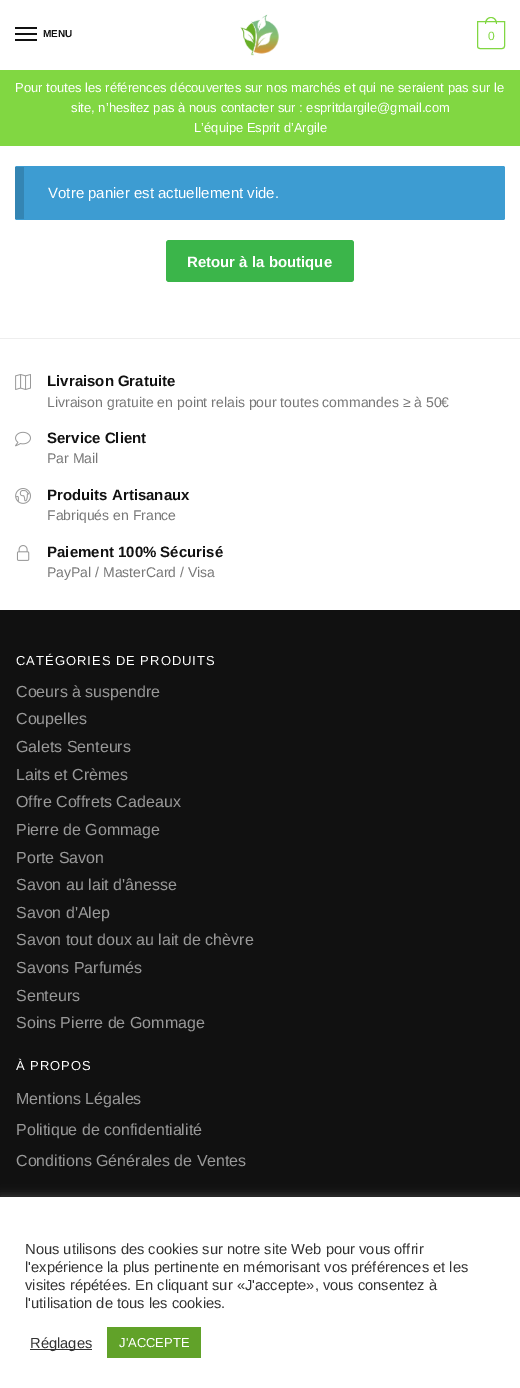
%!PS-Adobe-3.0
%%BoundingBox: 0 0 520 1388
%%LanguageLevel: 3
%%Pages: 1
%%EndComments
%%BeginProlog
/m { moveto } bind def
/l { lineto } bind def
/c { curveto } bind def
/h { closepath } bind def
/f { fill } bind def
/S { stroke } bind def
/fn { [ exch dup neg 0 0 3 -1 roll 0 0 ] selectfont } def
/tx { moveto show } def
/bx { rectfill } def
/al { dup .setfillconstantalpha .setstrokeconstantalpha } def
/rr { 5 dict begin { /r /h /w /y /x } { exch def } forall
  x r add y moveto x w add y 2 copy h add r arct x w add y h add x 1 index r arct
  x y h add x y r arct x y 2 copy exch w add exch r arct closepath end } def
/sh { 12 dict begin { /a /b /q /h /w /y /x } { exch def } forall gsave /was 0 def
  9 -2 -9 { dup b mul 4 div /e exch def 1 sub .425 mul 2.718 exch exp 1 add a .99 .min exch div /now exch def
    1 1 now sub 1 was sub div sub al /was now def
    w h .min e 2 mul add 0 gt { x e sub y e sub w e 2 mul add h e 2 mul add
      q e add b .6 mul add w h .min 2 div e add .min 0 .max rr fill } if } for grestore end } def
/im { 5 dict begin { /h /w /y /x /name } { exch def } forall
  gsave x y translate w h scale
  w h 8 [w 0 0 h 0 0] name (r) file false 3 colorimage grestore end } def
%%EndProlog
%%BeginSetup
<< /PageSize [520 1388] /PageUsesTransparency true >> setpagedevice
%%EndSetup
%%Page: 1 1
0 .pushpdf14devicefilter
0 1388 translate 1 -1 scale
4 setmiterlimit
1 setgray
0 0 520 1388 bx
0.067 setgray
15 27 22 2 bx
15 33 22 2 bx
/LiberationSans-Bold 10 fn
(MENU) 43 37 tx
15 39 22 2 bx
(image0.raw) 240 14 39 42 im
0.506 0.843 0.259 setrgbcolor
477.5 21.5 m 504.5 21.5 l 504.5 46 l 504.5 47.5 503.5 48.5 502 48.5 c 480 48.5 l 478.5 48.5 477.5 47.5 477.5 46 c h S
491 17 m 495 17 497 20.5 497 24 c 485 24 l 485 20.5 487 17 491 17 c h 491 18 m 494.5 18 496 21 496 24 c 486 24 l 486 21 487.5 18 491 18 c h eofill
/LiberationSans-Regular 12 fn
488 40 m -1 0 (0) ashow
0 70 520 76 bx
/LiberationSans-Regular 13 fn
1 setgray
(Pour toutes les références découvertes sur nos marchés et qui ne seraient pas sur le) 15 92 tx
(site, n’hesitez pas à nous contacter sur : espritdargile@gmail.com) 71 112 tx
(L’équipe Esprit d’Argile) 194 132 tx
0.239 0.612 0.824 setrgbcolor
15 166 490 54 2 rr f
0.15 al
0 setgray
15 167 9 52 bx
/LiberationSans-Regular 15 fn
1 al
1 setgray
(Votre panier est actuellement vide.) 48 198 tx
0.231 0.71 0.29 setrgbcolor
166 240 188 42 3 rr f
/LiberationSans-Bold 15 fn
1 setgray
(Retour à la boutique) 187 267 tx
0.933 setgray
0 338 520 1 bx
0.067 setgray
(Livraison Gratuite) 47 386 tx
(image1.raw) 15 374 16 16 im
/LiberationSans-Regular 14 fn
0.467 setgray
(Livraison gratuite en point relais pour toutes commandes ≥ à 50€) 47 407 tx
/LiberationSans-Bold 15 fn
0.067 setgray
(Service Client) 47 443 tx
(image2.raw) 15 431 16 16 im
/LiberationSans-Regular 14 fn
0.467 setgray
(Par Mail) 47 463 tx
/LiberationSans-Bold 15 fn
0.067 setgray
(Produits Artisanaux) 47 500 tx
(image3.raw) 15 488 16 16 im
/LiberationSans-Regular 14 fn
0.467 setgray
(Fabriqués en France) 47 520 tx
/LiberationSans-Bold 15 fn
0.067 setgray
(Paiement 100% Sécurisé) 47 557 tx
(image4.raw) 16 545 14 16 im
/LiberationSans-Regular 14 fn
0.467 setgray
(PayPal / MasterCard / Visa) 47 577 tx
0.067 setgray
0 610 520 587 bx
/LiberationSans-Regular 13 fn
1 setgray
16 665 m 1 0 (CATÉGORIES DE PRODUITS) ashow
/LiberationSans-Regular 16 fn
0.6 setgray
(Coeurs à suspendre) 16 697 tx
(Coupelles) 16 724 tx
(Galets Senteurs) 16 752 tx
(Laits et Crèmes) 16 780 tx
(Offre Coffrets Cadeaux) 16 807 tx
(Pierre de Gommage) 16 835 tx
(Porte Savon) 16 863 tx
(Savon au lait d'ânesse) 16 890 tx
(Savon d'Alep) 16 918 tx
(Savon tout doux au lait de chèvre) 16 945 tx
(Savons Parfumés) 16 973 tx
(Senteurs) 16 1001 tx
(Soins Pierre de Gommage) 16 1028 tx
/LiberationSans-Regular 13 fn
1 setgray
16 1070 m 1 0 (À PROPOS) ashow
/LiberationSans-Regular 16 fn
0.6 setgray
(Mentions Légales) 16 1104 tx
(Politique de confidentialité) 16 1135 tx
(Conditions Générales de Ventes) 16 1166 tx
0.675 0.671 0.671 setrgbcolor
0 1196 520 191 0 5 0.3 sh
1 setgray
0 1197 520 191 bx
/LiberationSans-Regular 14.7 fn
0.2 setgray
(Nous utilisons des cookies sur notre site Web pour vous offrir) 25 1254 tx
(l'expérience la plus pertinente en mémorisant vos préférences et les) 25 1272 tx
(visites répétées. En cliquant sur «J'accepte», vous consentez à) 25 1290 tx
(l'utilisation de tous les cookies.) 25 1308 tx
30 1349 62 1 bx
(Réglages) 30 1348 tx
0.38 0.635 0.161 setrgbcolor
107 1327 94 31 bx
/LiberationSans-Regular 13 fn
1 setgray
(J'ACCEPTE) 119 1347 tx
.poppdf14devicefilter showpage
%%EOF
